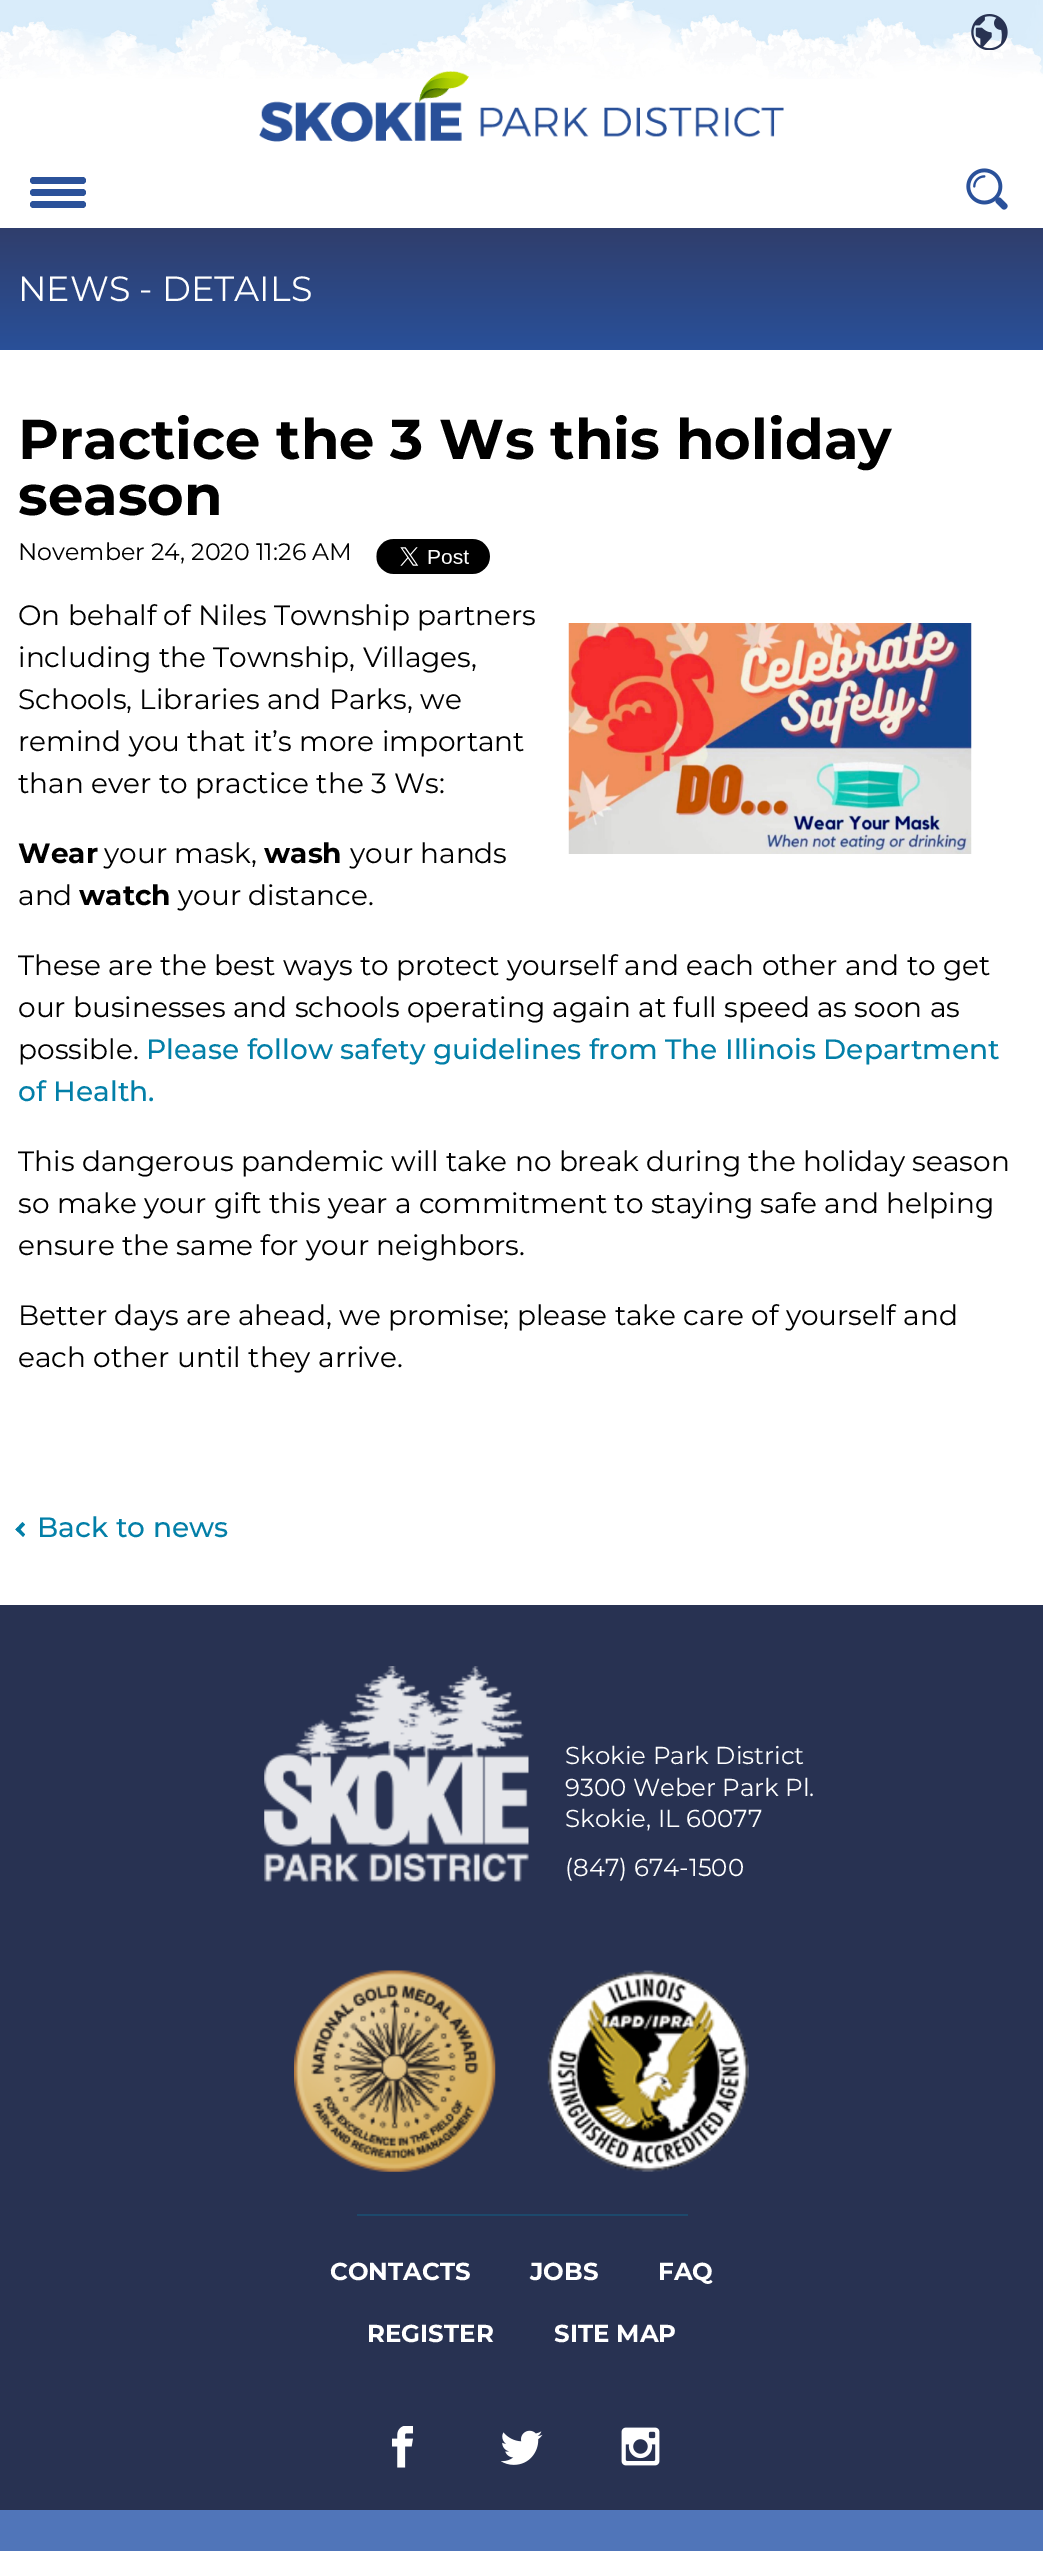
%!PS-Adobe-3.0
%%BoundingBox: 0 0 1043 2551
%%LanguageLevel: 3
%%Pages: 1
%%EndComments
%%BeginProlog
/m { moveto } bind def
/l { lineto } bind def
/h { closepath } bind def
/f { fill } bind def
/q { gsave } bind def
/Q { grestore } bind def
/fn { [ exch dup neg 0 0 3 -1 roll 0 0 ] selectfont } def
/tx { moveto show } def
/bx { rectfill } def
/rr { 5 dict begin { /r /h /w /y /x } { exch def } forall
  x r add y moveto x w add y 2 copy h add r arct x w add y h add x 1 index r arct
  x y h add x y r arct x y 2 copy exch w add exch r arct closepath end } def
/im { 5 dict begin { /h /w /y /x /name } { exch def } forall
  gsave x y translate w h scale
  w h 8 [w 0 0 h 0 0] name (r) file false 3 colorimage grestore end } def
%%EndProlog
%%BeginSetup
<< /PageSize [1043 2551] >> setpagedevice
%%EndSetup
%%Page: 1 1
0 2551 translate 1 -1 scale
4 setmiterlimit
1 setgray
0 0 1043 2551 bx
(image0.raw) 0 0 1043 79 im
0.169 0.322 0.604 setrgbcolor
30 177 56 7 3.5 rr f
30 189 56 7 3.5 rr f
30 201 56 7 3.5 rr f
(image1.raw) 259 71 525 71 im
(image2.raw) 971 14 37 36 im
(image3.raw) 966 168 42 42 im
q 0 228 m 1043 228 l 1043 350 l 0 350 l h clip newpath
<< /ShadingType 2 /ColorSpace /DeviceRGB /Coords [522 227 522 350] /Extend [true true] /Function << /FunctionType 2 /Domain [0 1] /C0 [0.188 0.243 0.424] /C1 [0.161 0.314 0.6] /N 1 >> >> shfill Q
/Montserrat-Regular 35 fn
1 setgray
(NEWS - DETAILS) 18 301 tx
/Montserrat-Bold 56 fn
0 setgray
(Practice the 3 Ws this holiday) 18 459 tx
(season) 18 515 tx
/Montserrat-Regular 23.75 fn
(November 24, 2020 11:26 AM) 18 560 tx
(image4.raw) 376 539 114 35 im
/Montserrat-Regular 28 fn
(On behalf of Niles Township partners) 18 625 tx
(including the Township, Villages,) 18 667 tx
(Schools, Libraries and Parks, we) 18 709 tx
(remind you that it’s more important) 18 751 tx
(than ever to practice the 3 Ws:) 18 793 tx
/Montserrat-Bold 28 fn
(Wear) 18 863 tx
/Montserrat-Regular 28 fn
(your mask,) 104 863 tx
/Montserrat-Bold 28 fn
(wash) 264 863 tx
/Montserrat-Regular 28 fn
(your hands) 350 863 tx
(and) 18 905 tx
/Montserrat-Bold 28 fn
(watch) 79 905 tx
/Montserrat-Regular 28 fn
(your distance.) 178 905 tx
(These are the best ways to protect yourself and each other and to get) 18 975 tx
(our businesses and schools operating again at full speed as soon as) 18 1017 tx
(possible.) 18 1059 tx
/Montserrat-Medium 28 fn
0.008 0.498 0.659 setrgbcolor
(Please follow safety guidelines from The Illinois Department) 146 1059 tx
(of Health.) 18 1101 tx
/Montserrat-Regular 28 fn
0 setgray
(This dangerous pandemic will take no break during the holiday season) 18 1171 tx
(so make your gift this year a commitment to staying safe and helping) 18 1213 tx
(ensure the same for your neighbors.) 18 1255 tx
(Better days are ahead, we promise; please take care of yourself and) 18 1325 tx
(each other until they arrive.) 18 1367 tx
(image5.raw) 568 623 404 231 im
0.008 0.498 0.659 setrgbcolor
18 1527 m 25 1534.5 l 23 1537 l 15.5 1529.5 l h f
22.5 1522 m 25 1524.5 l 18 1532 l 15.5 1529.5 l h f
/Montserrat-Medium 28 fn
(Back to news) 37 1537 tx
0.157 0.196 0.322 setrgbcolor
0 1605 1043 905 bx
(image6.raw) 264 1666 265 216 im
/Montserrat-Regular 24.5 fn
1 setgray
(Skokie Park District) 565 1764 tx
(9300 Weber Park Pl.) 565 1796 tx
(Skokie, IL 60077) 565 1827 tx
(\(847\) 674-1500) 565 1876 tx
(image7.raw) 294 1970 202 202 im
(image8.raw) 547 1970 202 202 im
0.114 0.286 0.424 setrgbcolor
357 2214 331 2 bx
/Montserrat-Bold 24.5 fn
1 setgray
(CONTACTS) 330 2280 tx
(JOBS) 530 2280 tx
(FAQ) 658 2280 tx
(REGISTER) 367 2342 tx
(SITE MAP) 554 2342 tx
(image9.raw) 392 2426 21 42 im
(image10.raw) 501 2430 42 35 im
(image11.raw) 621 2427 39 39 im
0.314 0.459 0.725 setrgbcolor
0 2510 1043 41 bx
showpage
%%EOF
